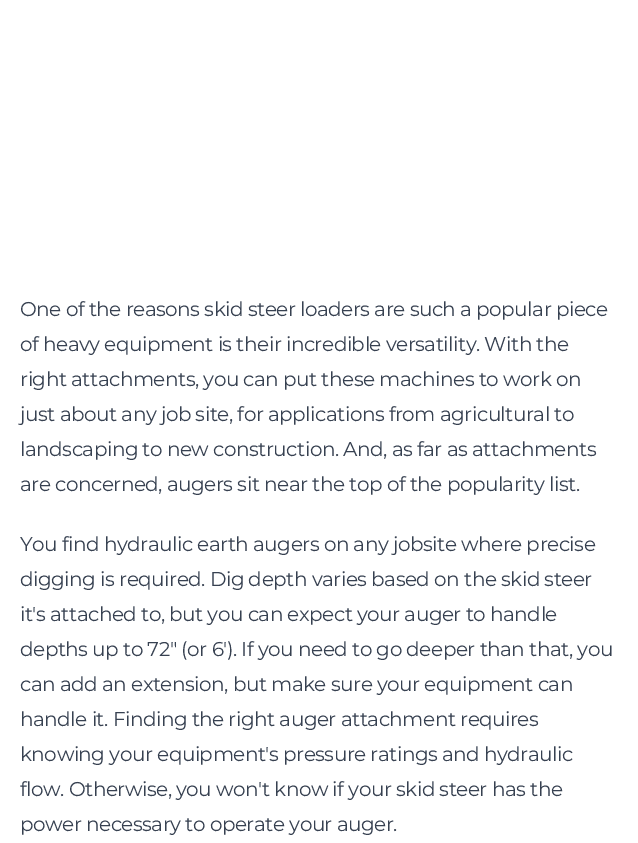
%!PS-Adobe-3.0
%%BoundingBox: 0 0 638 843
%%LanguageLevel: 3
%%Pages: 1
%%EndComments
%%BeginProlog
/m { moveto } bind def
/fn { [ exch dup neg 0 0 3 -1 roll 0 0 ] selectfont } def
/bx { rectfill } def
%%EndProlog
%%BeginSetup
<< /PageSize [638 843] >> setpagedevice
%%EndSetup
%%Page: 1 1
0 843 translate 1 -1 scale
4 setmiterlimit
1 setgray
0 0 638 843 bx
/Montserrat-Regular 20 fn
0.216 0.255 0.318 setrgbcolor
20 316 m -0.5 0 (One of the reasons skid steer loaders are such a popular piece) ashow
20 351 m -0.5 0 (of heavy equipment is their incredible versatility. With the) ashow
20 386 m -0.5 0 (right attachments, you can put these machines to work on) ashow
20 421 m -0.5 0 (just about any job site, for applications from agricultural to) ashow
20 456 m -0.5 0 (landscaping to new construction. And, as far as attachments) ashow
20 491 m -0.5 0 (are concerned, augers sit near the top of the popularity list.) ashow
20 551 m -0.5 0 (You find hydraulic earth augers on any jobsite where precise) ashow
20 586 m -0.5 0 (digging is required. Dig depth varies based on the skid steer) ashow
20 621 m -0.5 0 (it's attached to, but you can expect your auger to handle) ashow
20 656 m -0.5 0 (depths up to 72" \(or 6'\). If you need to go deeper than that, you) ashow
20 691 m -0.5 0 (can add an extension, but make sure your equipment can) ashow
20 726 m -0.5 0 (handle it. Finding the right auger attachment requires) ashow
20 761 m -0.5 0 (knowing your equipment's pressure ratings and hydraulic) ashow
20 796 m -0.5 0 (flow. Otherwise, you won't know if your skid steer has the) ashow
20 831 m -0.5 0 (power necessary to operate your auger.) ashow
showpage
%%EOF
